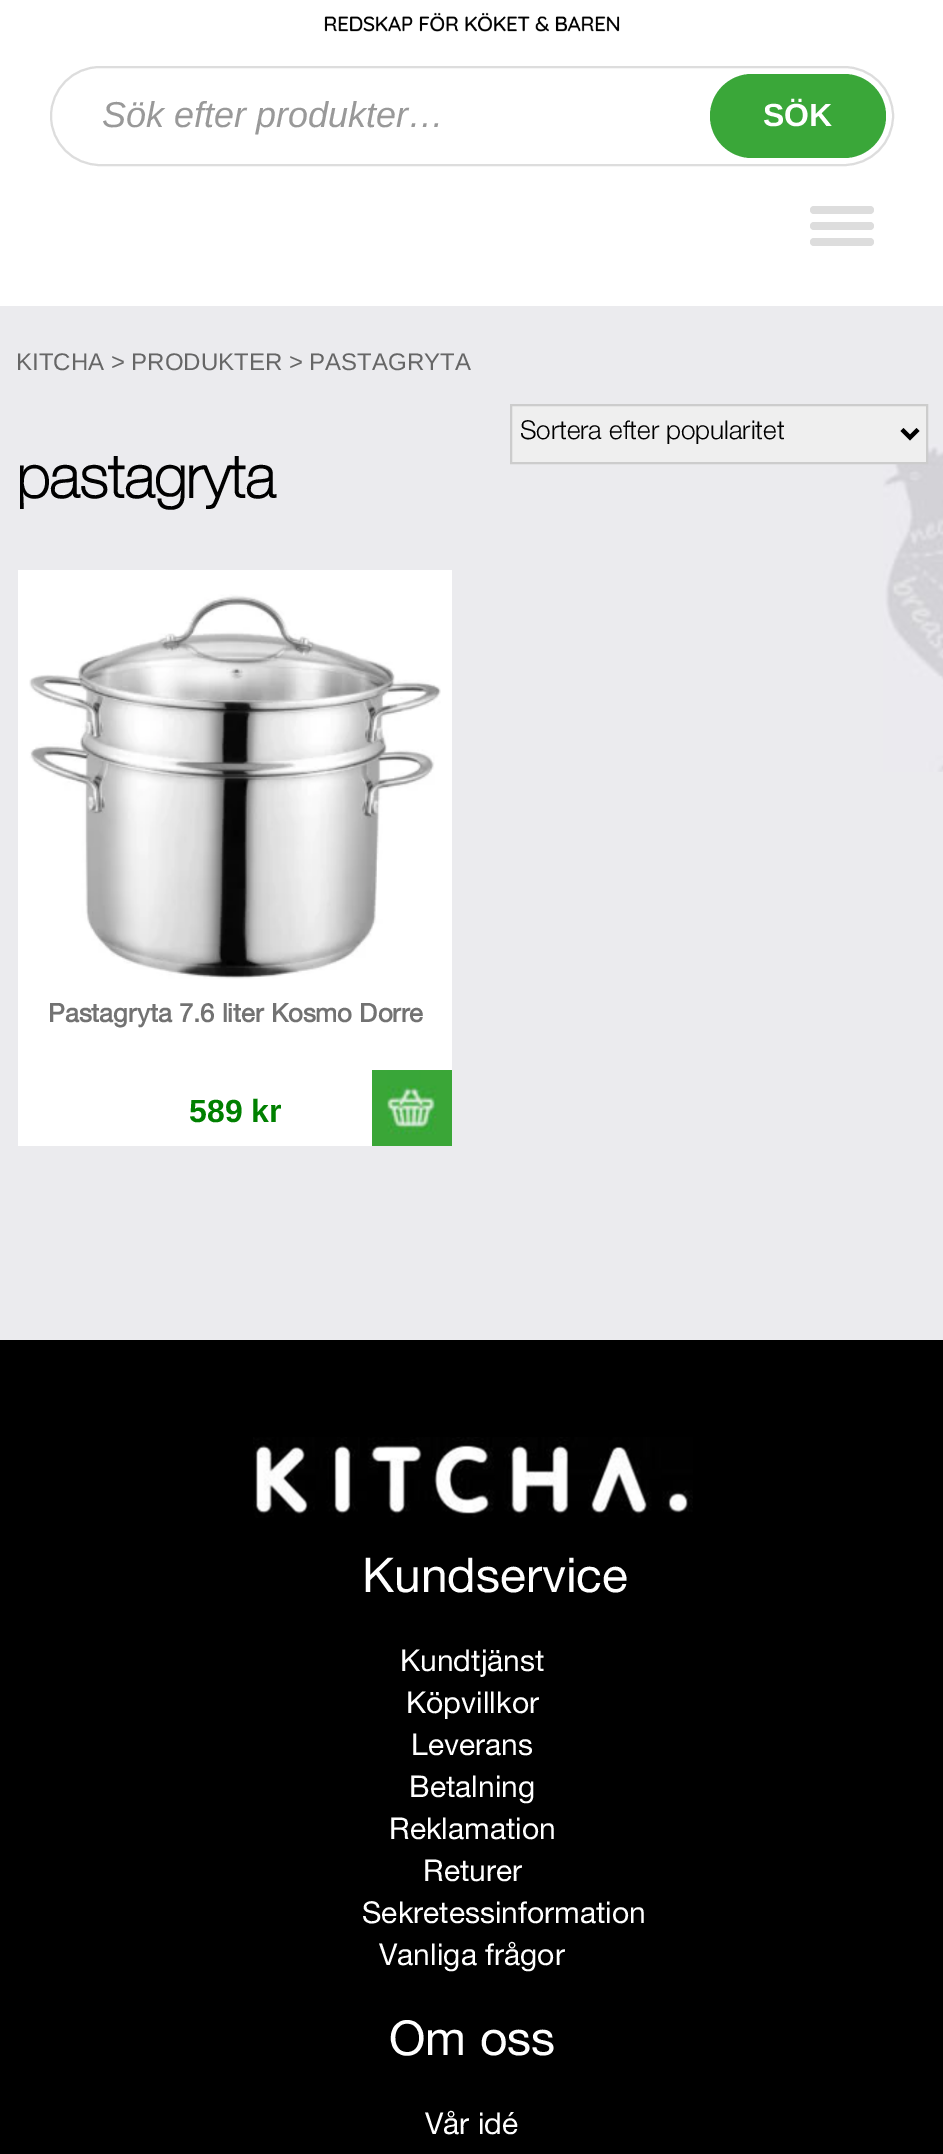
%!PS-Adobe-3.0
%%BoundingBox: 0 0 943 2154
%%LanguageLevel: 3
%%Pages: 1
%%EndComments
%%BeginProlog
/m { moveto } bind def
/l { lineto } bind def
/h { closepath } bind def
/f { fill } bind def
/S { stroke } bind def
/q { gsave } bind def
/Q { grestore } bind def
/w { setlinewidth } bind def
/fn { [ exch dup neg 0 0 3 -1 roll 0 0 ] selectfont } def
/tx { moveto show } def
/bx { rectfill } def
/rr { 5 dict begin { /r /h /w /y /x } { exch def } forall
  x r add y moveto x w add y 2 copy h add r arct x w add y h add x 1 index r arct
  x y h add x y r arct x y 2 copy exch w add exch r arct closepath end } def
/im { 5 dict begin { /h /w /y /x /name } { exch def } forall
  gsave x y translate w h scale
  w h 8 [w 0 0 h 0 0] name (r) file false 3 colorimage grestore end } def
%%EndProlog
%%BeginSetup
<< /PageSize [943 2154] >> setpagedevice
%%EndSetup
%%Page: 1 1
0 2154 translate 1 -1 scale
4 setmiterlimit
0.922 0.922 0.933 setrgbcolor
0 0 943 2154 bx
(image0.raw) 883 444 60 328 im
1 setgray
0 0 943 306 bx
(image1.raw) 324 12 296 20 im
0.867 setgray
2 w
51 67 842 98 49 rr S
/LiberationSans-Italic 36 fn
0.6 setgray
(Sök efter produkter…) 102 127 tx
0.227 0.655 0.224 setrgbcolor
710 74 176 84 42 rr f
/LiberationSans-Bold 32 fn
1 setgray
(SÖK) 763 126 tx
0.867 setgray
810 206 64 8 4 rr f
810 222 64 8 4 rr f
810 238 64 8 4 rr f
/LiberationSans-Regular 24 fn
0.4 setgray
(KITCHA > PRODUKTER > PASTAGRYTA) 16 370 tx
0.937 setgray
511 405 m 927 405 l 927 463 l 511 463 l h q f Q
0.8 setgray
S
0 setgray
4 w
902 429.5 m 910 437.5 l 918 429.5 l S
/HelveticaNeue-Light 26 fn
(Sortera efter popularitet) 520 439 tx
/HelveticaNeue-Bold 60 fn
(pastagryta) 16 498 tx
1 setgray
18 570 434 576 bx
(image2.raw) 29 594 412 385 im
/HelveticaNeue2-Bold 25.75 fn
0.447 setgray
(Pastagryta 7.6 liter Kosmo Dorre) 48 1022 tx
/LiberationSans-Bold 32 fn
0 0.502 0 setrgbcolor
(589 kr) 189 1122 tx
(image3.raw) 372 1070 80 76 im
0 setgray
0 1340 943 814 bx
(image4.raw) 253 1437 440 81 im
/HelveticaNeue-Regular 48 fn
1 setgray
(Kundservice) 362 1592 tx
/HelveticaNeue-Regular 30 fn
(Kundtjänst) 400 1671 tx
(Köpvillkor) 406 1713 tx
(Leverans) 411 1755 tx
(Betalning) 409 1797 tx
(Reklamation) 389 1839 tx
(Returer) 423 1881 tx
(Sekretessinformation) 362 1923 tx
(Vanliga frågor) 379 1965 tx
/HelveticaNeue-Regular 48 fn
(Om oss) 389 2055 tx
/HelveticaNeue-Regular 30 fn
(Vår idé) 425 2134 tx
showpage
%%EOF
